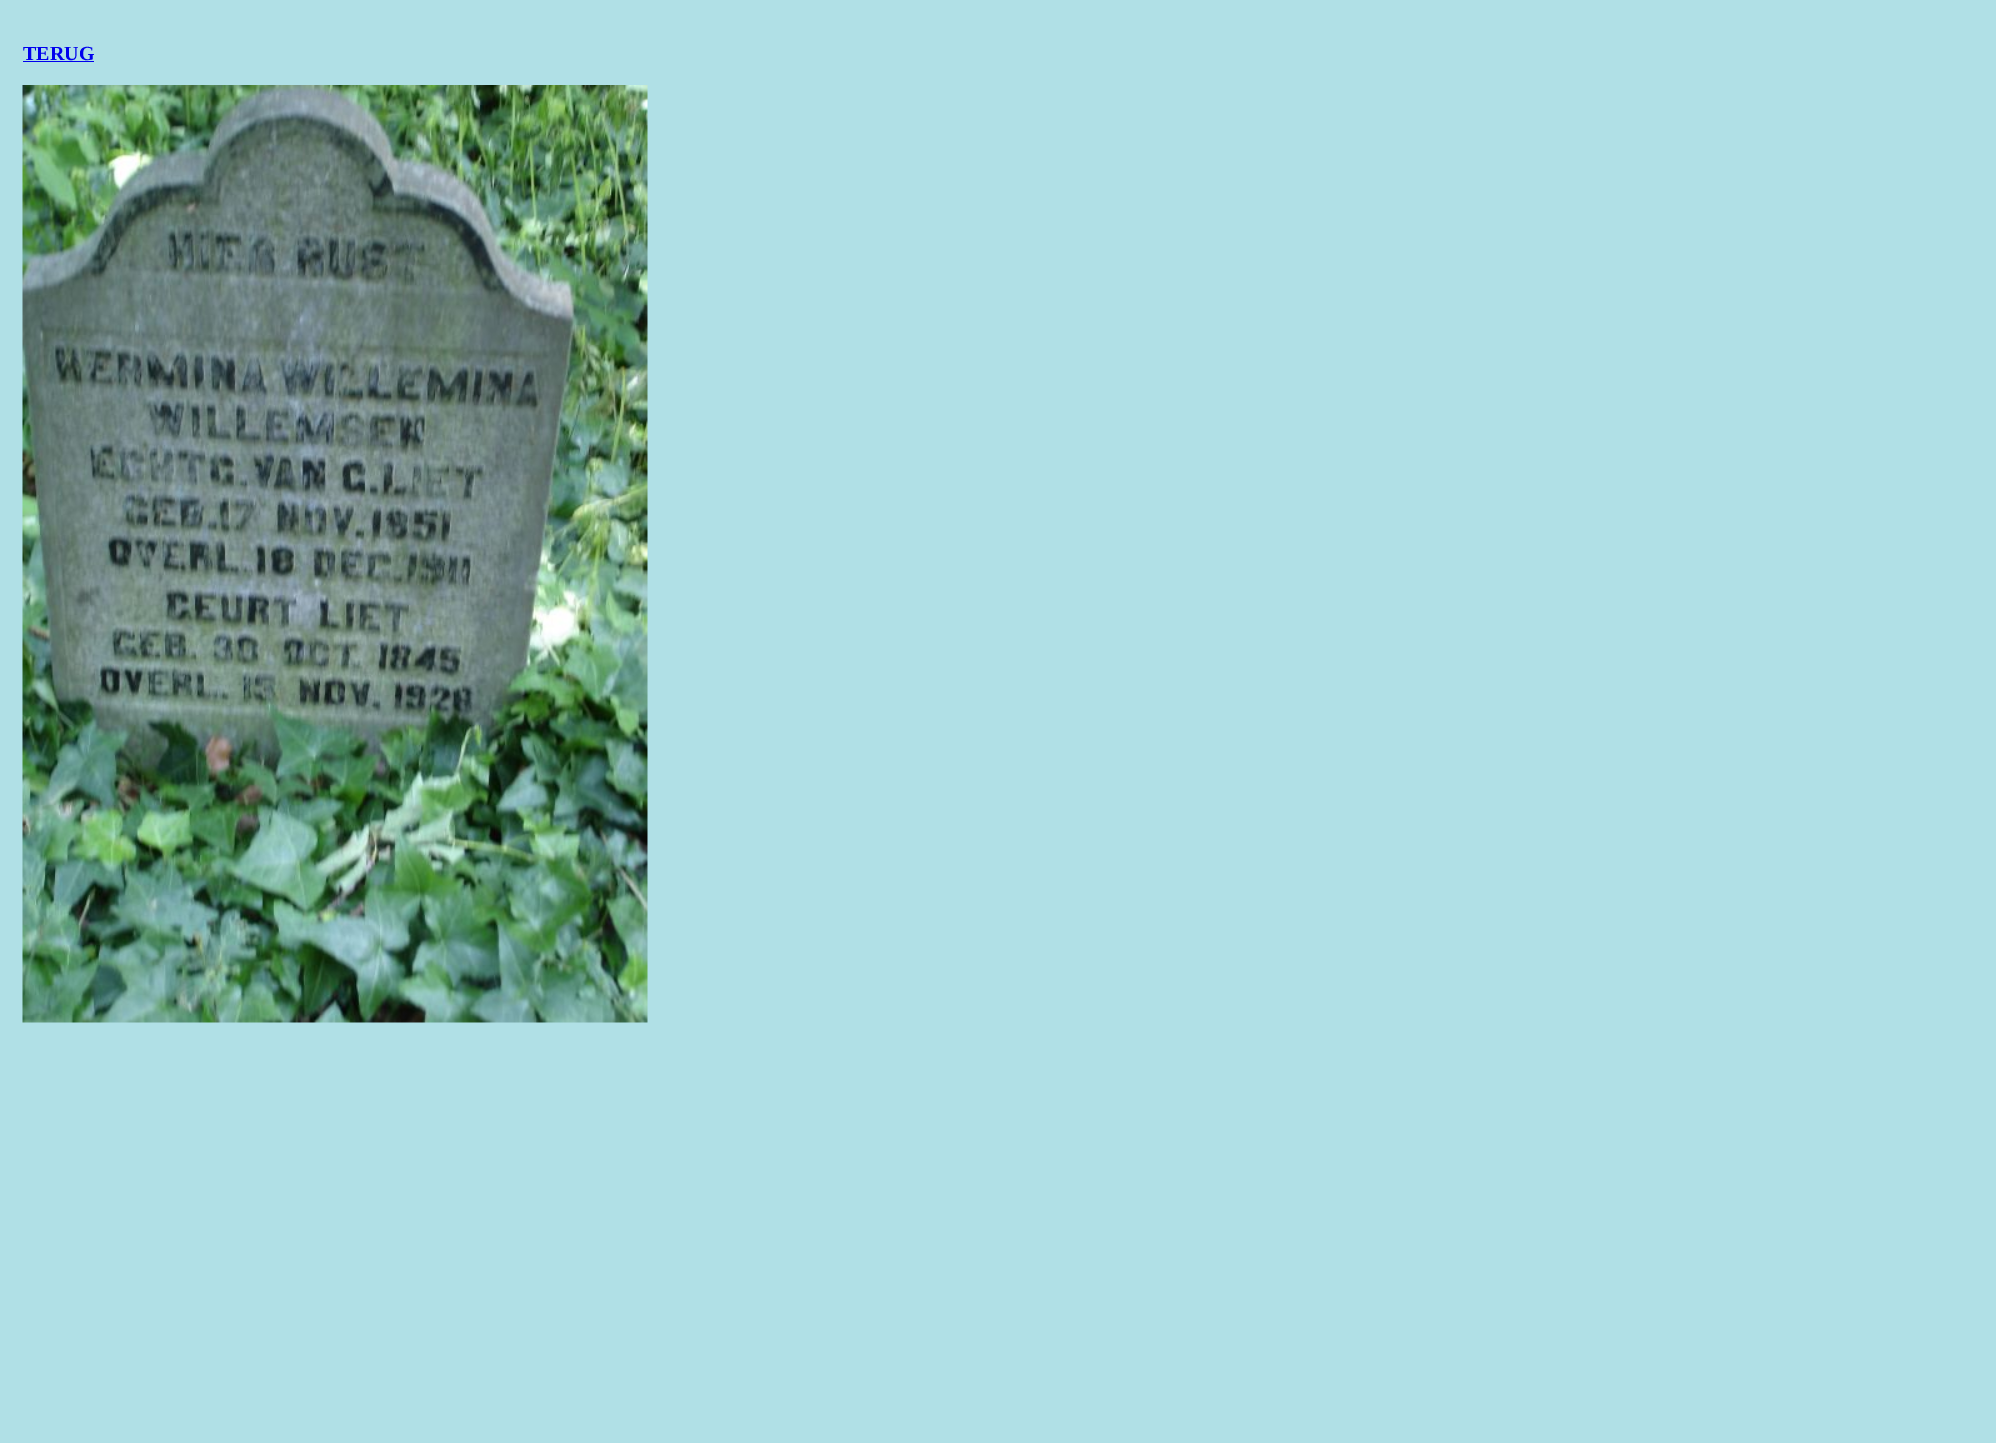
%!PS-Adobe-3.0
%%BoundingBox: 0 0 1996 1443
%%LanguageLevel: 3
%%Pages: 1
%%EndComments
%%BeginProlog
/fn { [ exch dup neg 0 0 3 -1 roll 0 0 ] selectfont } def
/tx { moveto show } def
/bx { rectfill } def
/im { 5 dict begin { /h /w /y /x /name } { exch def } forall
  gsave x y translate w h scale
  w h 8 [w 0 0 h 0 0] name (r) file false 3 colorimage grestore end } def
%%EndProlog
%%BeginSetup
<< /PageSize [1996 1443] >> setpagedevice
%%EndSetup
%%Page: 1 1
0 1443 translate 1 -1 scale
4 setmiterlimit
0.69 0.878 0.902 setrgbcolor
0 0 1996 1443 bx
/LiberationSerif-Bold 20 fn
0 0 0.933 setrgbcolor
(TERUG) 23 60 tx
23 61 71 1 bx
(image0.raw) 22 85 626 938 im
showpage
%%EOF
